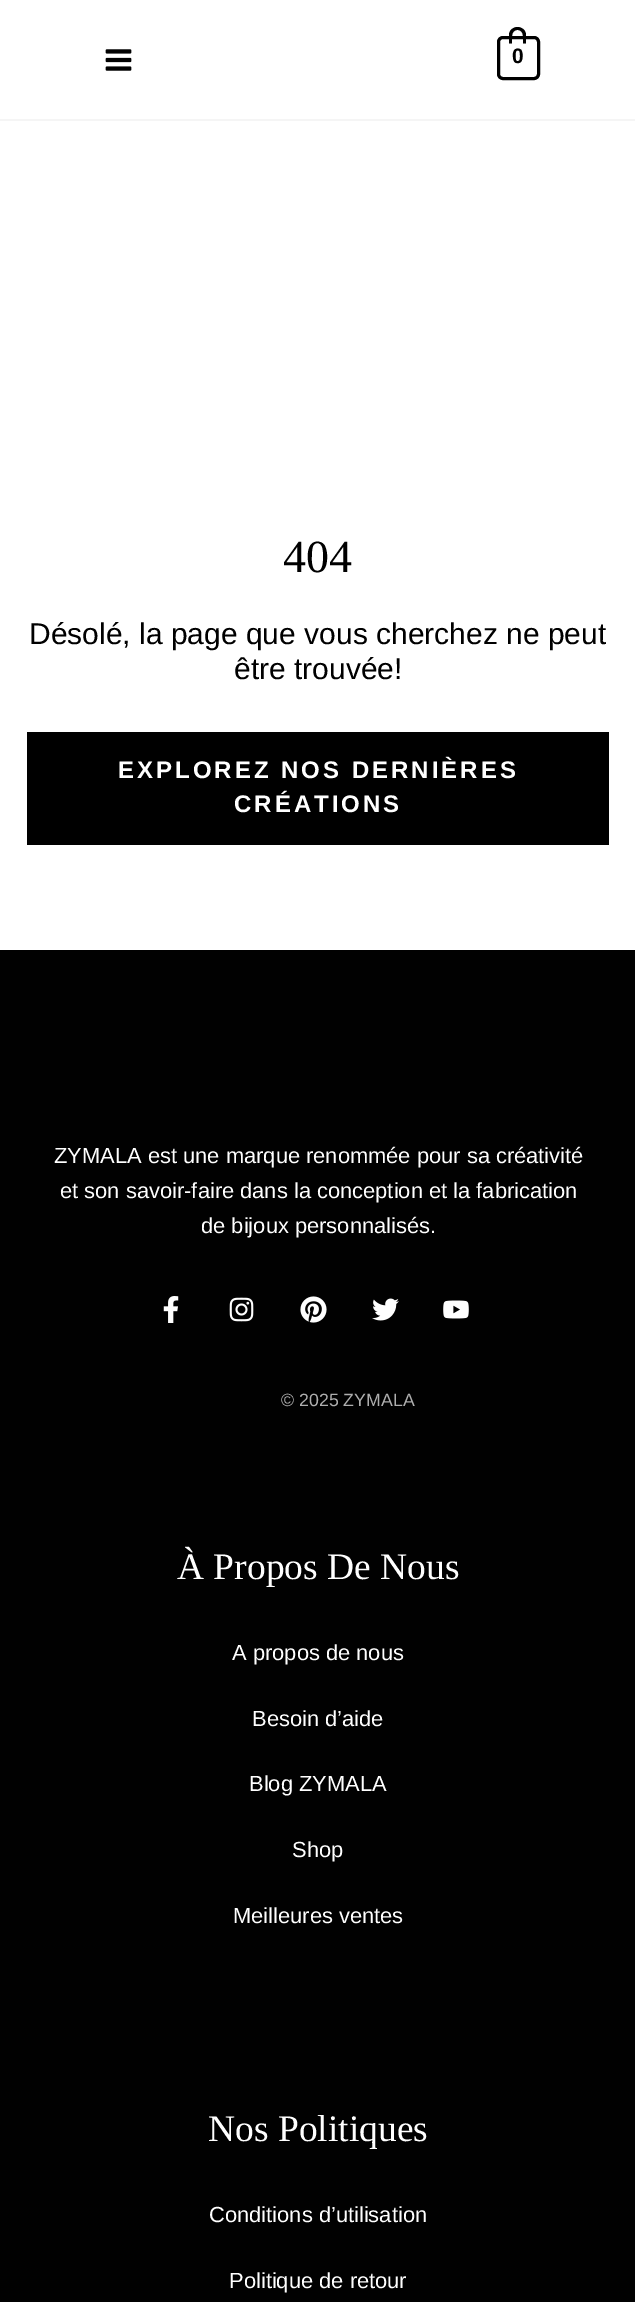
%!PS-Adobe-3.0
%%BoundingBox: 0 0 635 2302
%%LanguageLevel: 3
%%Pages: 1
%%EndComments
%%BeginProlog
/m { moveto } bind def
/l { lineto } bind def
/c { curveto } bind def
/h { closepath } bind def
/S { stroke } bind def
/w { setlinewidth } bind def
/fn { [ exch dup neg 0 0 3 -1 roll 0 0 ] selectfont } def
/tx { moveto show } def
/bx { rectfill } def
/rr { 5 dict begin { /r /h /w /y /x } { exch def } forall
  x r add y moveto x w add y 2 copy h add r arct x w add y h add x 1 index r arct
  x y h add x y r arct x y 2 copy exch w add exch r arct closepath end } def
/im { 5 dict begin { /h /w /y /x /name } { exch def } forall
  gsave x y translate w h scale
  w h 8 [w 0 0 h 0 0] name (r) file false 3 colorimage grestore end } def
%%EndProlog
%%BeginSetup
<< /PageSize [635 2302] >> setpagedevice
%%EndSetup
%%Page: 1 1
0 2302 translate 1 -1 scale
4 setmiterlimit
1 setgray
0 0 635 2302 bx
0.961 setgray
0 119 635 2 bx
(image0.raw) 105 49 27 22 im
0 setgray
3 w
498.5 37.5 40 41 4.5 rr S
517.5 27 m 522 27 526 30.5 526 35 c 526 43.5 l 509 43.5 l 509 35 l 509 30.5 513 27 517.5 27 c h 517.5 30 m 524.5 30 523 39 523 43.5 c 512 43.5 l 512 39 510.5 30 517.5 30 c h eofill
/LiberationSans-Bold 21 fn
(0) 512 63 tx
/LiberationSerif-Regular 46 fn
(404) 283 572 tx
/LiberationSans-Regular 30 fn
(Désolé, la page que vous cherchez ne peut) 29 644 tx
(être trouvée!) 234 679 tx
27 732 582 113 bx
/LiberationSans-Bold 24 fn
1 setgray
118 778 m 3 0 (EXPLOREZ NOS DERNIÈRES) ashow
234 812 m 3 0 (CRÉATIONS) ashow
0.004 setgray
0 950 635 1352 bx
/LiberationSans-Regular 21.9 fn
1 setgray
(ZYMALA est une marque renommée pour sa créativité) 54 1163 tx
(et son savoir-faire dans la conception et la fabrication) 60 1198 tx
(de bijoux personnalisés.) 201 1233 tx
(image1.raw) 163 1296 16 27 im
(image2.raw) 229 1297 25 25 im
(image3.raw) 300 1296 27 27 im
(image4.raw) 372 1298 27 23 im
(image5.raw) 443 1300 26 19 im
/LiberationSans-Regular 17.75 fn
0.682 setgray
(© 2025 ZYMALA) 281 1406 tx
/LiberationSerif-Regular 37.5 fn
1 setgray
(À Propos De Nous) 177 1579 tx
/LiberationSans-Regular 21.9 fn
(A propos de nous) 232 1660 tx
(Besoin d’aide) 252 1726 tx
(Blog ZYMALA) 249 1791 tx
(Shop) 292 1857 tx
(Meilleures ventes) 233 1923 tx
/LiberationSerif-Regular 37.5 fn
(Nos Politiques) 208 2141 tx
/LiberationSans-Regular 21.9 fn
(Conditions d’utilisation) 209 2222 tx
(Politique de retour) 229 2288 tx
showpage
%%EOF
